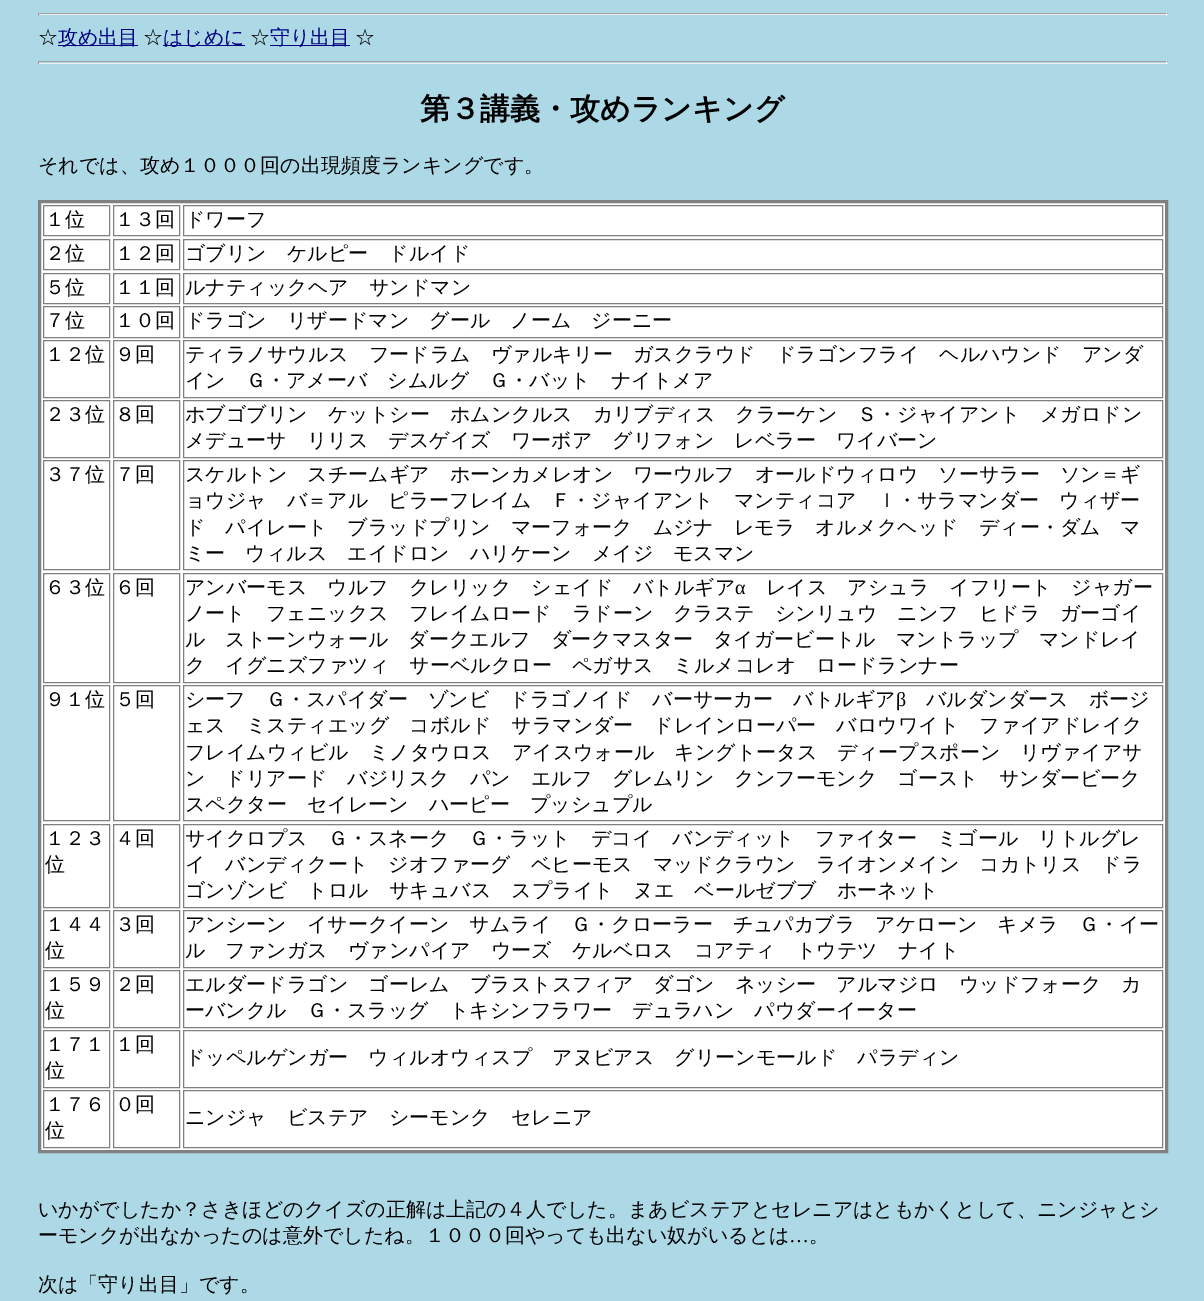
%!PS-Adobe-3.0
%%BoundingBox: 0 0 1204 1301
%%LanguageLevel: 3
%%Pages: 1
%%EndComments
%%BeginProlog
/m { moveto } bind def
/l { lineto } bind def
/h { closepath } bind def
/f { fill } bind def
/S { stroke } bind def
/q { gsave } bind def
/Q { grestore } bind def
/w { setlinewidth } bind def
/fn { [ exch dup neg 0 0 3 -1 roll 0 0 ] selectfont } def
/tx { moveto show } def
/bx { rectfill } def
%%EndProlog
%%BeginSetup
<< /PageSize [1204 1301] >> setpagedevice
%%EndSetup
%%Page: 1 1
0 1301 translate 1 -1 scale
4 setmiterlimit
0.678 0.847 0.902 setrgbcolor
0 0 1204 1301 bx
0.624 setgray
38 13 1130 1 bx
0.933 setgray
1166 13 1 3 bx
38 14 1130 1 bx
0.624 setgray
38 13 1 3 bx
/WenQuanYiZenHei-Medium 20 fn
0 setgray
(☆) 38 44 tx
0 0 0.502 setrgbcolor
58 45 80 1 bx
(攻め出目) 58 44 tx
0 setgray
(☆) 143 44 tx
0 0 0.502 setrgbcolor
163 45 82 1 bx
(はじめに) 163 44 tx
0 setgray
(☆) 250 44 tx
0 0 0.502 setrgbcolor
270 45 80 1 bx
(守り出目) 270 44 tx
0 setgray
(☆) 355 44 tx
0.624 setgray
38 61 1130 1 bx
0.933 setgray
1166 61 1 3 bx
38 63 1130 1 bx
0.624 setgray
38 61 1 3 bx
/WenQuanYiZenHei-Bold 30 fn
0 setgray
(第３講義・攻めランキング) 420 119 tx
/WenQuanYiZenHei-Medium 20 fn
(それでは、攻め１０００回の出現頻度ランキングです。) 38 172 tx
1 setgray
39.5 201.5 m 1166.5 201.5 l 1166.5 1151.5 l 39.5 1151.5 l h q f Q
0.502 setgray
3 w
S
1 w
43.5 205.5 66 30 rectstroke
0 setgray
(１位) 45 226 tx
0.502 setgray
113.5 205.5 66 30 rectstroke
0 setgray
(１３回) 115 226 tx
0.502 setgray
183.5 205.5 979 30 rectstroke
0 setgray
(ドワーフ) 185 226 tx
0.502 setgray
43.5 239.5 66 30 rectstroke
0 setgray
(２位) 45 260 tx
0.502 setgray
113.5 239.5 66 30 rectstroke
0 setgray
(１２回) 115 260 tx
0.502 setgray
183.5 239.5 979 30 rectstroke
0 setgray
(ゴブリン　ケルピー　ドルイド) 185 260 tx
0.502 setgray
43.5 273.5 66 30 rectstroke
0 setgray
(５位) 45 294 tx
0.502 setgray
113.5 273.5 66 30 rectstroke
0 setgray
(１１回) 115 294 tx
0.502 setgray
183.5 273.5 979 30 rectstroke
0 setgray
(ルナティックヘア　サンドマン) 185 294 tx
0.502 setgray
43.5 306.5 66 31 rectstroke
0 setgray
(７位) 45 327 tx
0.502 setgray
113.5 306.5 66 31 rectstroke
0 setgray
(１０回) 115 327 tx
0.502 setgray
183.5 306.5 979 31 rectstroke
0 setgray
(ドラゴン　リザードマン　グール　ノーム　ジーニー) 185 327 tx
0.502 setgray
43.5 340.5 66 57 rectstroke
0 setgray
(１２位) 45 361 tx
0.502 setgray
113.5 340.5 66 57 rectstroke
0 setgray
(９回) 115 361 tx
0.502 setgray
183.5 340.5 979 57 rectstroke
0 setgray
(ティラノサウルス　フードラム　ヴァルキリー　ガスクラウド　ドラゴンフライ　ヘルハウンド　アンダ) 185 361 tx
(イン　Ｇ・アメーバ　シムルグ　Ｇ・バット　ナイトメア) 185 387 tx
0.502 setgray
43.5 400.5 66 57 rectstroke
0 setgray
(２３位) 45 421 tx
0.502 setgray
113.5 400.5 66 57 rectstroke
0 setgray
(８回) 115 421 tx
0.502 setgray
183.5 400.5 979 57 rectstroke
0 setgray
(ホブゴブリン　ケットシー　ホムンクルス　カリブディス　クラーケン　Ｓ・ジャイアント　メガロドン) 185 421 tx
(メデューサ　リリス　デスゲイズ　ワーボア　グリフォン　レベラー　ワイバーン) 185 447 tx
0.502 setgray
43.5 460.5 66 109 rectstroke
0 setgray
(３７位) 45 481 tx
0.502 setgray
113.5 460.5 66 109 rectstroke
0 setgray
(７回) 115 481 tx
0.502 setgray
183.5 460.5 979 109 rectstroke
0 setgray
(スケルトン　スチームギア　ホーンカメレオン　ワーウルフ　オールドウィロウ　ソーサラー　ソン＝ギ) 185 481 tx
(ョウジャ　バ＝アル　ピラーフレイム　Ｆ・ジャイアント　マンティコア　Ｉ・サラマンダー　ウィザー) 185 507 tx
(ド　パイレート　ブラッドプリン　マーフォーク　ムジナ　レモラ　オルメクヘッド　ディー・ダム　マ) 185 534 tx
(ミー　ウィルス　エイドロン　ハリケーン　メイジ　モスマン) 185 560 tx
0.502 setgray
43.5 573.5 66 109 rectstroke
0 setgray
(６３位) 45 594 tx
0.502 setgray
113.5 573.5 66 109 rectstroke
0 setgray
(６回) 115 594 tx
0.502 setgray
183.5 573.5 979 109 rectstroke
0 setgray
(アンバーモス　ウルフ　クレリック　シェイド　バトルギア) 185 594 tx
/LiberationSerif-Regular 20 fn
(α) 735 594 tx
/WenQuanYiZenHei-Medium 20 fn
(レイス　アシュラ　イフリート　ジャガー) 766 594 tx
(ノート　フェニックス　フレイムロード　ラドーン　クラステ　シンリュウ　ニンフ　ヒドラ　ガーゴイ) 185 620 tx
(ル　ストーンウォール　ダークエルフ　ダークマスター　タイガービートル　マントラップ　マンドレイ) 185 646 tx
(ク　イグニズファツィ　サーベルクロー　ペガサス　ミルメコレオ　ロードランナー) 185 672 tx
0.502 setgray
43.5 685.5 66 135 rectstroke
0 setgray
(９１位) 45 706 tx
0.502 setgray
113.5 685.5 66 135 rectstroke
0 setgray
(５回) 115 706 tx
0.502 setgray
183.5 685.5 979 135 rectstroke
0 setgray
(シーフ　Ｇ・スパイダー　ゾンビ　ドラゴノイド　バーサーカー　バトルギア) 185 706 tx
/LiberationSerif-Regular 20 fn
(β) 896 706 tx
/WenQuanYiZenHei-Medium 20 fn
(バルダンダース　ボージ) 926 706 tx
(ェス　ミスティエッグ　コボルド　サラマンダー　ドレインローパー　バロウワイト　ファイアドレイク) 185 732 tx
(フレイムウィビル　ミノタウロス　アイスウォール　キングトータス　ディープスポーン　リヴァイアサ) 185 759 tx
(ン　ドリアード　バジリスク　パン　エルフ　グレムリン　クンフーモンク　ゴースト　サンダービーク) 185 785 tx
(スペクター　セイレーン　ハーピー　プッシュプル) 185 811 tx
0.502 setgray
43.5 824.5 66 83 rectstroke
0 setgray
(１２３) 45 845 tx
(位) 45 871 tx
0.502 setgray
113.5 824.5 66 83 rectstroke
0 setgray
(４回) 115 845 tx
0.502 setgray
183.5 824.5 979 83 rectstroke
0 setgray
(サイクロプス　Ｇ・スネーク　Ｇ・ラット　デコイ　バンディット　ファイター　ミゴール　リトルグレ) 185 845 tx
(イ　バンディクート　ジオファーグ　ベヒーモス　マッドクラウン　ライオンメイン　コカトリス　ドラ) 185 871 tx
(ゴンゾンビ　トロル　サキュバス　スプライト　ヌエ　ベールゼブブ　ホーネット) 185 897 tx
0.502 setgray
43.5 910.5 66 57 rectstroke
0 setgray
(１４４) 45 931 tx
(位) 45 957 tx
0.502 setgray
113.5 910.5 66 57 rectstroke
0 setgray
(３回) 115 931 tx
0.502 setgray
183.5 910.5 979 57 rectstroke
0 setgray
(アンシーン　イサークイーン　サムライ　Ｇ・クローラー　チュパカブラ　アケローン　キメラ　Ｇ・イー) 185 931 tx
(ル　ファンガス　ヴァンパイア　ウーズ　ケルベロス　コアティ　トウテツ　ナイト) 185 957 tx
0.502 setgray
43.5 970.5 66 57 rectstroke
0 setgray
(１５９) 45 991 tx
(位) 45 1017 tx
0.502 setgray
113.5 970.5 66 57 rectstroke
0 setgray
(２回) 115 991 tx
0.502 setgray
183.5 970.5 979 57 rectstroke
0 setgray
(エルダードラゴン　ゴーレム　ブラストスフィア　ダゴン　ネッシー　アルマジロ　ウッドフォーク　カ) 185 991 tx
(ーバンクル　Ｇ・スラッグ　トキシンフラワー　デュラハン　パウダーイーター) 185 1017 tx
0.502 setgray
43.5 1030.5 66 57 rectstroke
0 setgray
(１７１) 45 1051 tx
(位) 45 1077 tx
0.502 setgray
113.5 1030.5 66 57 rectstroke
0 setgray
(１回) 115 1051 tx
0.502 setgray
183.5 1030.5 979 57 rectstroke
0 setgray
(ドッペルゲンガー　ウィルオウィスプ　アヌビアス　グリーンモールド　パラディン) 185 1064 tx
0.502 setgray
43.5 1090.5 66 57 rectstroke
0 setgray
(１７６) 45 1111 tx
(位) 45 1137 tx
0.502 setgray
113.5 1090.5 66 57 rectstroke
0 setgray
(０回) 115 1111 tx
0.502 setgray
183.5 1090.5 979 57 rectstroke
0 setgray
(ニンジャ　ビステア　シーモンク　セレニア) 185 1124 tx
(いかがでしたか？さきほどのクイズの正解は上記の４人でした。まあビステアとセレニアはともかくとして、ニンジャとシ) 38 1216 tx
(ーモンクが出なかったのは意外でしたね。１０００回やっても出ない奴がいるとは) 38 1242 tx
/LiberationSerif-Regular 20 fn
(…) 789 1242 tx
/WenQuanYiZenHei-Medium 20 fn
(。) 809 1242 tx
(次は「守り出目」です。) 38 1291 tx
showpage
%%EOF
